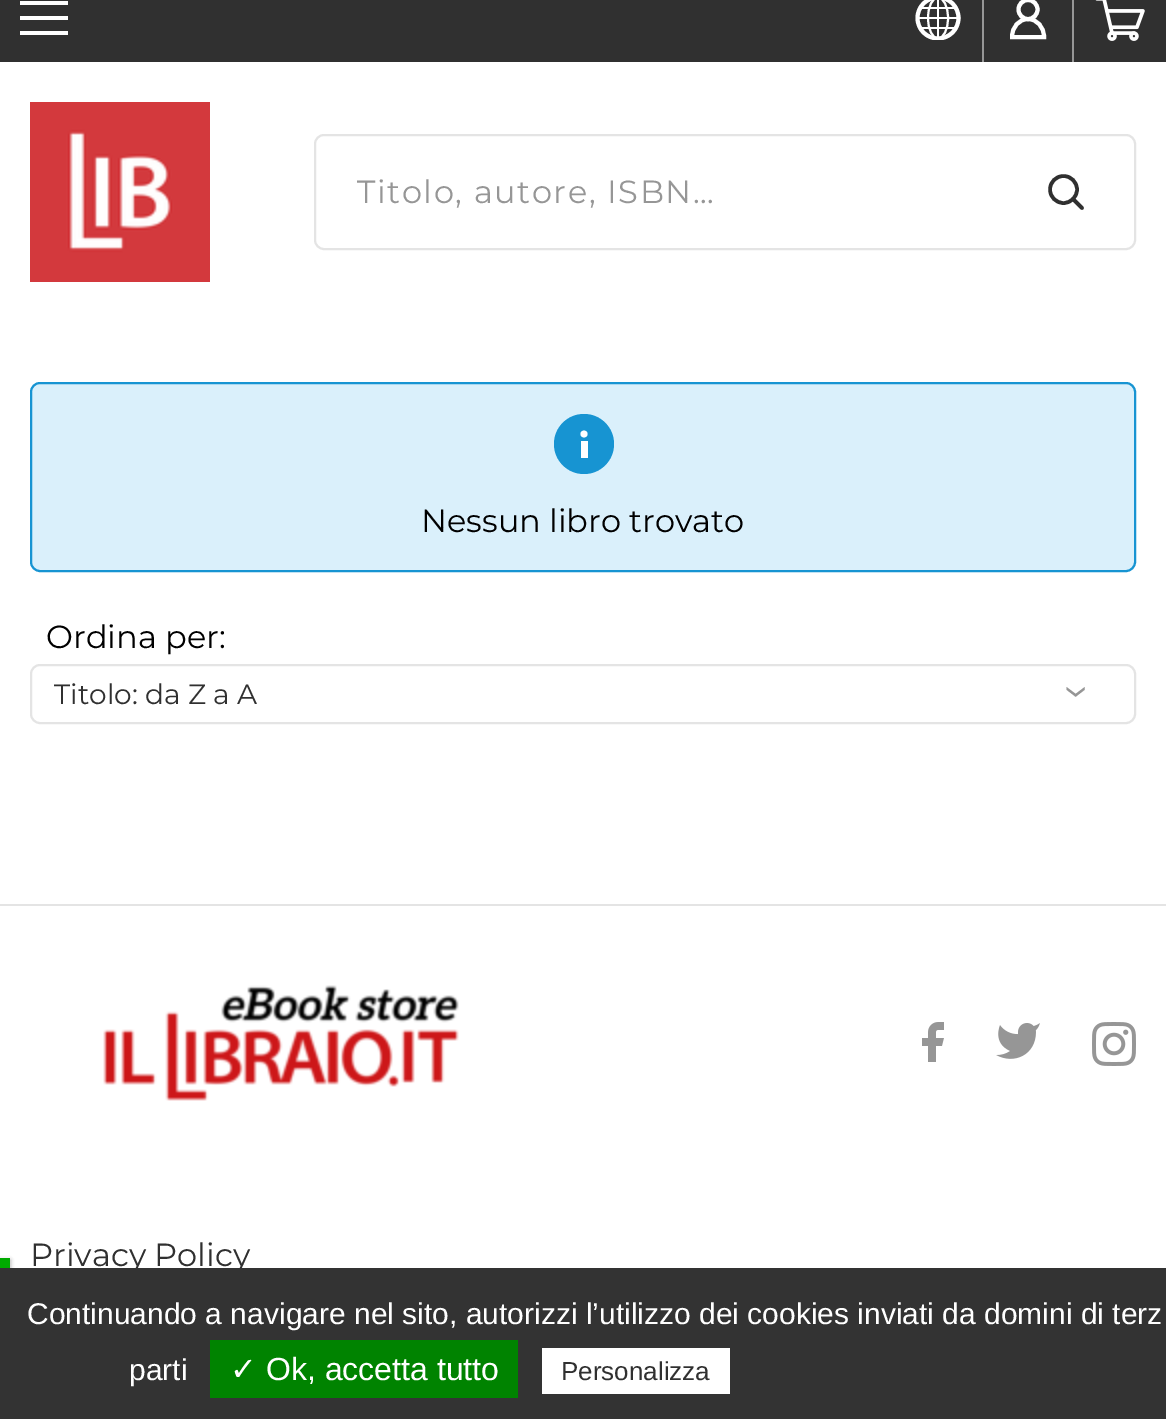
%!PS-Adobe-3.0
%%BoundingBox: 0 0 1166 1419
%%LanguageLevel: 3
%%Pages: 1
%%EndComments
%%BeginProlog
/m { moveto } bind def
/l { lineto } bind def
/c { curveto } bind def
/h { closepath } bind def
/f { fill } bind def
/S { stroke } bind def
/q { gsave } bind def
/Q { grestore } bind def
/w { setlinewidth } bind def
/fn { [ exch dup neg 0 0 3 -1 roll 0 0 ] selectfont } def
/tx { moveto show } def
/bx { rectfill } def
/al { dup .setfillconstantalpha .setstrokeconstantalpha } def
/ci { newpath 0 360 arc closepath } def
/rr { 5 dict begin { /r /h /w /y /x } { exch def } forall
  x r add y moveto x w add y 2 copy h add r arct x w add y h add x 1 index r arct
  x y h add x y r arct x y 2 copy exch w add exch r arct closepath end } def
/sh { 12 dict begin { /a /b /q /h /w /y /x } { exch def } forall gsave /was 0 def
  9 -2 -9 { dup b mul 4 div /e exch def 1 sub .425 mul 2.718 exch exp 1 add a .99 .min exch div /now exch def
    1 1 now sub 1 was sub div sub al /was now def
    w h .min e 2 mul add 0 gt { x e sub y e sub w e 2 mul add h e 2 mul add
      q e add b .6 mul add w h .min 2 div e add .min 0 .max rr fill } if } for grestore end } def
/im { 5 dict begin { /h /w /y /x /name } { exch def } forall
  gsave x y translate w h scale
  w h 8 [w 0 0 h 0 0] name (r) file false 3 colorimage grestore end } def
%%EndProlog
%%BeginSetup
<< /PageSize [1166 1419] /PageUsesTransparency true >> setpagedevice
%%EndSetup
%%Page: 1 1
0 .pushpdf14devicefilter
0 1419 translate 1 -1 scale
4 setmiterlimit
1 setgray
0 0 1166 1419 bx
0.188 setgray
0 0 1166 62 bx
1 setgray
20 1 48 4 bx
20 31 48 4 bx
20 16 48 4 bx
q
914 0 48 40 rectclip
4 w
938 18 20.5 ci S
Q
2 w
938 -2.5 m 943.5 -2.5 948 6.5 948 18 c 948 29.5 943.5 38.5 938 38.5 c 932.5 38.5 928 29.5 928 18 c 928 6.5 932.5 -2.5 938 -2.5 c h S
919 17 39 2 bx
937 0 2 38 bx
922 7 32 2 bx
922 27 32 2 bx
0.588 setgray
982 0 2 62 bx
1 setgray
4 w
2 setlinecap
1012 37 m 1012 27 1019 19 1028 19 c 1037 19 1044 27 1044 37 c h S
0 setlinecap
1028 9.5 9.5 ci S
0.588 setgray
1072 0 2 62 bx
(image0.raw) 1095 0 50 41 im
(image1.raw) 30 102 180 180 im
0.894 setgray
2 w
315 135 820 114 9 rr S
/Montserrat-Regular 32 fn
0.588 setgray
357 203 m 1.6 0 (Titolo, autore, ISBN…) ashow
0.188 setgray
3.6 w
1063.5 189.5 13.5 ci S
1 setlinecap
1 setlinejoin
1082 208 m 1073 199 l S
0.855 0.941 0.984 setrgbcolor
31 383 1104 188 9 rr q f Q
0.09 0.58 0.824 setrgbcolor
2 w
0 setlinecap
0 setlinejoin
S
584 444 30 ci f
1 setgray
580.5 434 m 580.5 429.5 587.5 429.5 587.5 434 c 587.5 438.5 580.5 438.5 580.5 434 c h f
581 441 7 17 bx
0 setgray
(Nessun libro trovato) 421 532 tx
(Ordina per:) 46 648 tx
0.894 setgray
31 665 1104 58 9 rr S
/Montserrat-Regular 28 fn
0.188 setgray
(Titolo: da Z a A) 54 704 tx
/Montserrat-Regular 48 fn
0.588 setgray
q 1063 685 translate 90 rotate 0 0 m (›) show Q
0.894 setgray
0 904 1166 2 bx
(image2.raw) 103 985 356 116 im
(image3.raw) 922 1022 22 40 im
(image4.raw) 996 1023 44 36 im
(image5.raw) 1092 1022 44 44 im
/Montserrat-Regular 32 fn
0.188 setgray
(Privacy Policy) 30 1266 tx
0.333 setgray
0 1260 10 10 0 2 1 sh
1 setgray
0 1258 10 10 0 2 1 sh
0 0.667 0 setrgbcolor
0 1258 10 10 bx
0.2 setgray
0 1268 1166 151 bx
/LiberationSans-Regular 30 fn
1 setgray
(Continuando a navigare nel sito, autorizzi l’utilizzo dei cookies inviati da domini di terz) 27 1324 tx
(parti) 129 1380 tx
0 0.514 0 setrgbcolor
210 1340 308 58 bx
/DejaVuSans-Regular 32 fn
1 setgray
(✓) 230 1380 tx
/LiberationSans-Regular 32 fn
(Ok, accetta tutto) 266 1380 tx
542 1348 188 46 bx
/LiberationSans-Regular 26 fn
0.188 setgray
(Personalizza) 561 1380 tx
.poppdf14devicefilter showpage
%%EOF
